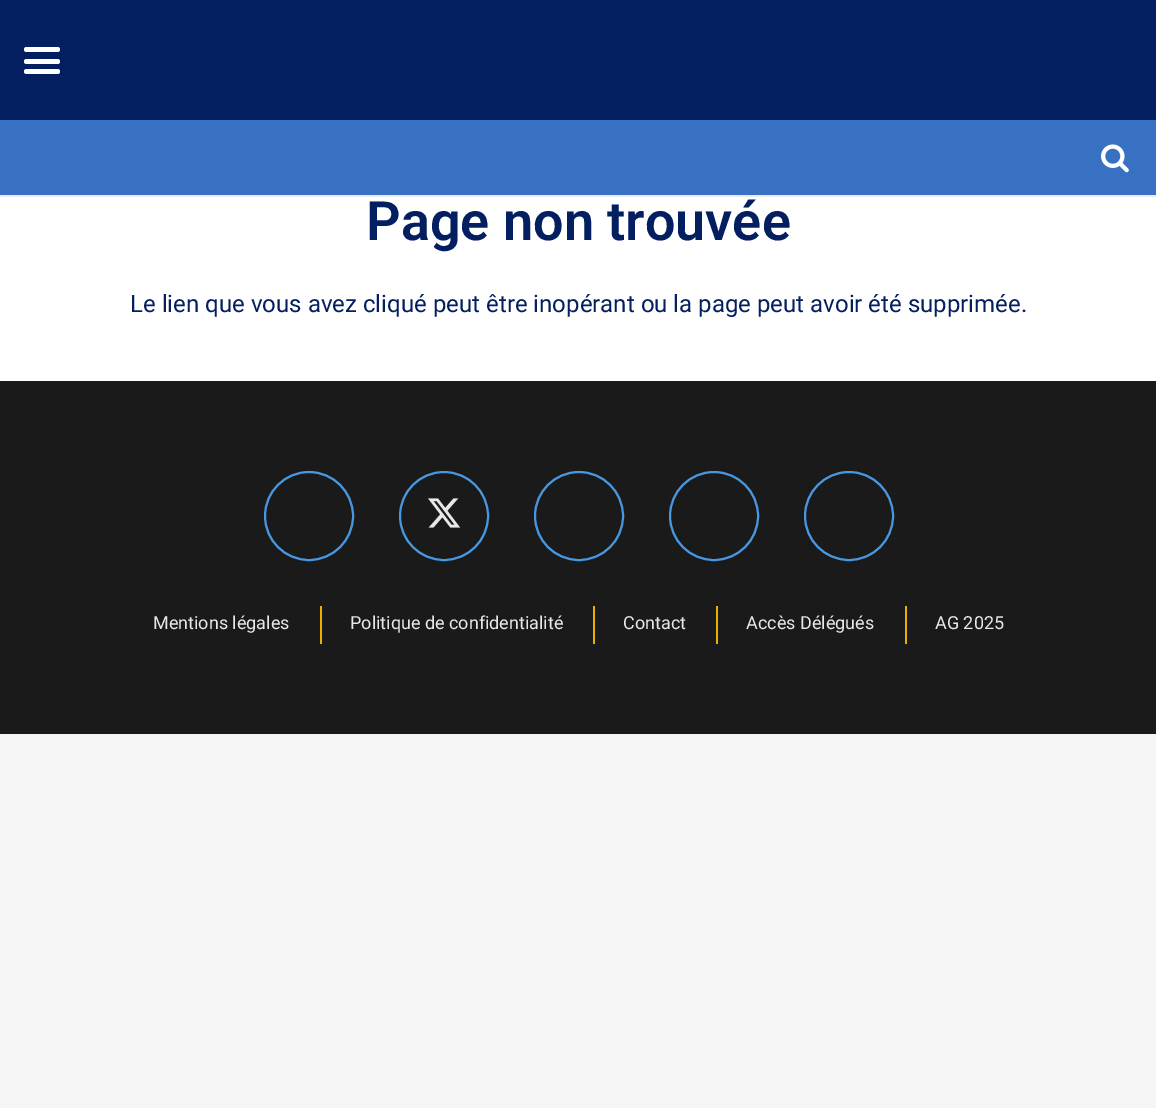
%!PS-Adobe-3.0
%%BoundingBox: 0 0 1156 1108
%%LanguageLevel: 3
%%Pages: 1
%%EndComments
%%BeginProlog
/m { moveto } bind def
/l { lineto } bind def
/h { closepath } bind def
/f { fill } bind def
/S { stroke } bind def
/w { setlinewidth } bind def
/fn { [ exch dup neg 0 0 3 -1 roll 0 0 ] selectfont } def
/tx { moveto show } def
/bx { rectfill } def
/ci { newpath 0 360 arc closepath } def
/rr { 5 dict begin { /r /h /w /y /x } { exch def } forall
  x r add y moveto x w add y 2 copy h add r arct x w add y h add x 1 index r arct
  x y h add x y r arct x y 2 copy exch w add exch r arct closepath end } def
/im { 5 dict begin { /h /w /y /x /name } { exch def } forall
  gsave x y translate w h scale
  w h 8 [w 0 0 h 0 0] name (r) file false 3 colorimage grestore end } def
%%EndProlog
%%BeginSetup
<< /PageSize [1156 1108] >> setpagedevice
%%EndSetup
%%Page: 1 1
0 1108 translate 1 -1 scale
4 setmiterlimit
0.961 setgray
0 0 1156 1108 bx
1 setgray
0 197 1156 184 bx
0.016 0.122 0.376 setrgbcolor
0 0 1156 120 bx
1 setgray
24 59 36 5 2.5 rr f
24 47 36 5 2.5 rr f
24 69 36 5 2.5 rr f
0.922 setgray
0 195 m 0 197 l 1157 197 l 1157 122 l 1156 122 l 1156 195 l h f
0.22 0.443 0.757 setrgbcolor
0 120 1156 75 bx
(image0.raw) 1101 144 28 29 im
/Roboto-SemiBold 54 fn
0.016 0.122 0.376 setrgbcolor
(Page non trouvée) 366 240 tx
/Roboto-Regular 24 fn
(Le lien que vous avez cliqué peut être inopérant ou la page peut avoir été supprimée.) 130 312 tx
0.102 setgray
0 381 1156 353 bx
0.278 0.596 0.882 setrgbcolor
2 w
309 516 44 ci S
444 516 44 ci S
(image1.raw) 428 498 33 30 im
579 516 44 ci S
714 516 44 ci S
849 516 44 ci S
0.918 0.69 0 setrgbcolor
320 606 2 38 bx
/Roboto-Regular 18 fn
0.91 setgray
(Mentions légales) 153 629 tx
0.918 0.69 0 setrgbcolor
593 606 2 38 bx
0.91 setgray
(Politique de confidentialité) 350 629 tx
0.918 0.69 0 setrgbcolor
716 606 2 38 bx
0.91 setgray
(Contact) 623 629 tx
0.918 0.69 0 setrgbcolor
905 606 2 38 bx
0.91 setgray
(Accès Délégués) 746 629 tx
(AG 2025) 935 629 tx
showpage
%%EOF
